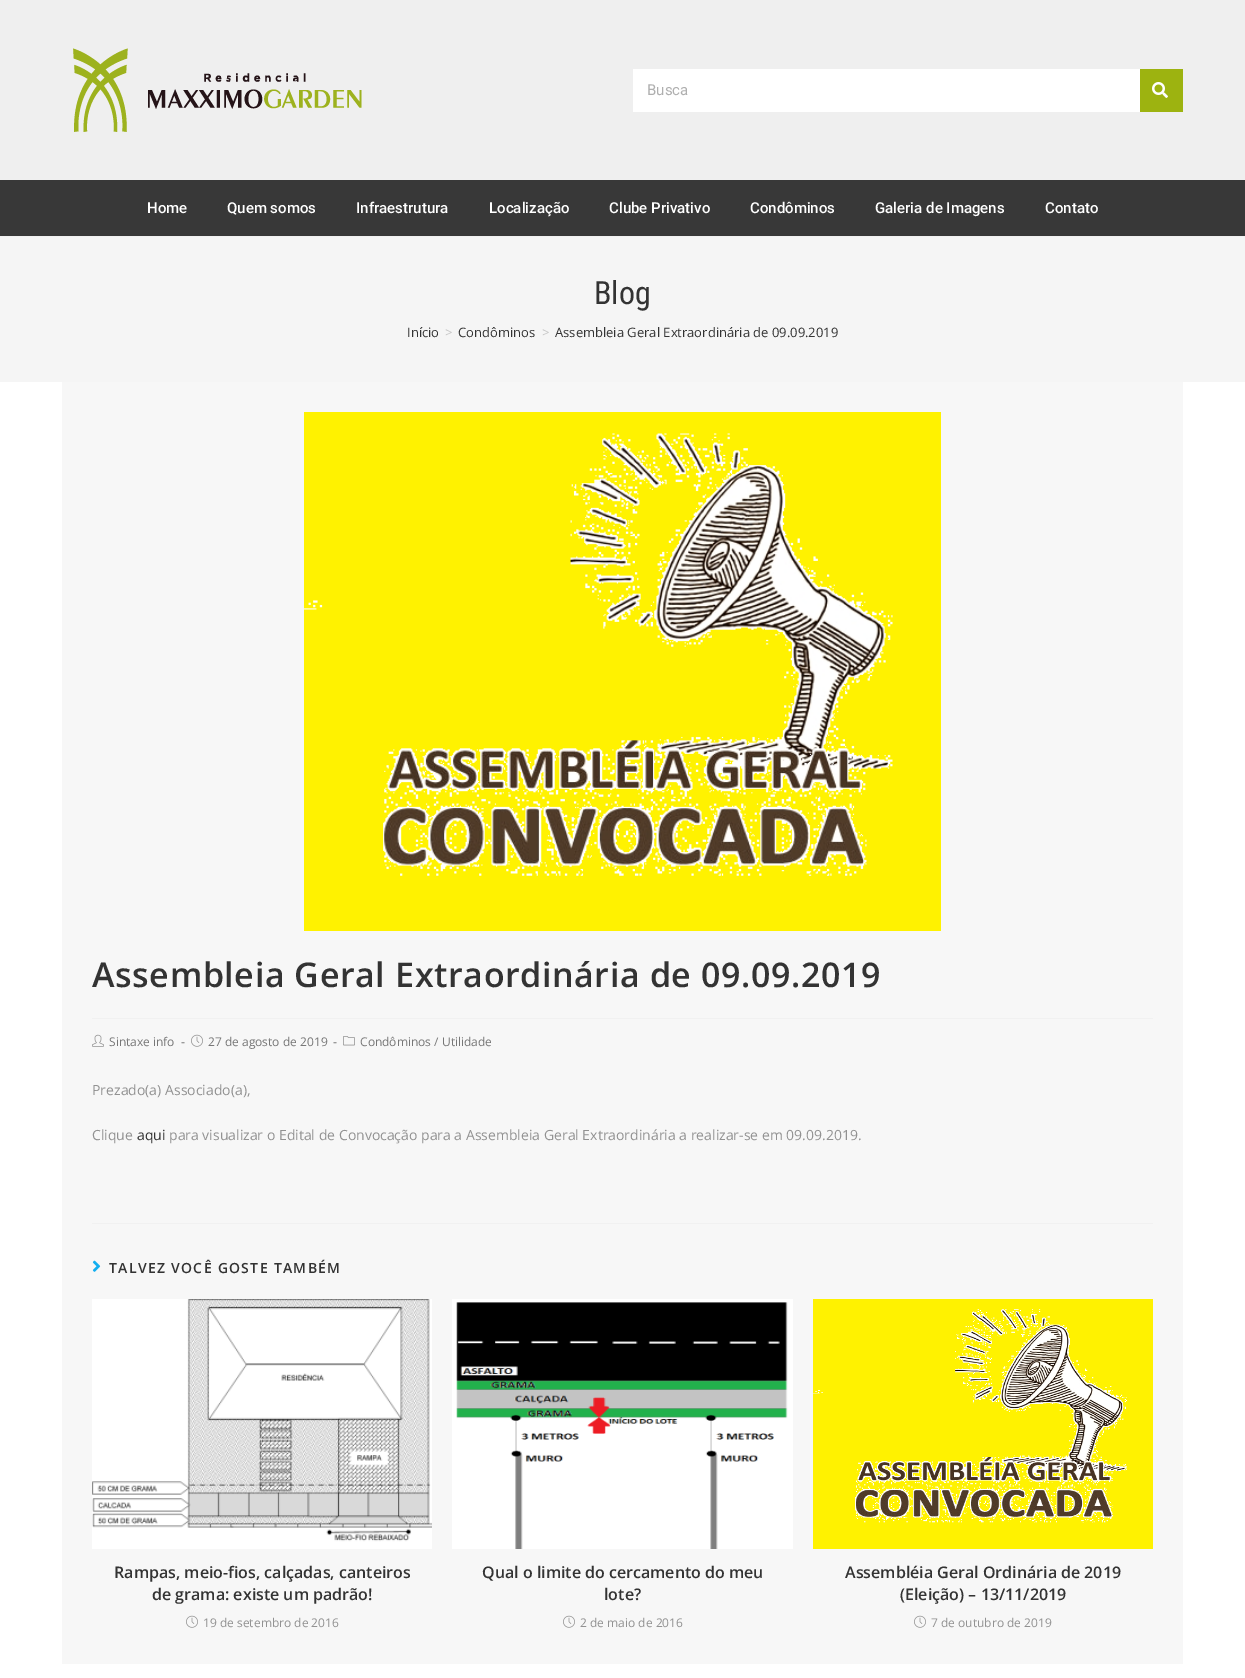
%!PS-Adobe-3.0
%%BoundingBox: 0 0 1245 1678
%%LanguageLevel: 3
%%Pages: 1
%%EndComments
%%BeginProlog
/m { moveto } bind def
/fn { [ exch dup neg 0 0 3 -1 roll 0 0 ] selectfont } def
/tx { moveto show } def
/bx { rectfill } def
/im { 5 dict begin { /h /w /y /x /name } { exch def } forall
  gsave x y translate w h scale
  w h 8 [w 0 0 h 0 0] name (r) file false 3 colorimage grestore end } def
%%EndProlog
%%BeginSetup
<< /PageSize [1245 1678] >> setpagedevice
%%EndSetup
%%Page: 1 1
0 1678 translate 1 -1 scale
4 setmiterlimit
1 setgray
0 0 1245 1678 bx
0.945 setgray
0 236 1245 1 bx
0.937 setgray
0 0 1245 180 bx
(image0.raw) 73 48 289 84 im
1 setgray
633 69 507 43 bx
/Roboto-Regular 15 fn
0.686 setgray
(Busca) 647 95 tx
0.616 0.702 0.063 setrgbcolor
1140 69 43 43 bx
(image1.raw) 1152 82 16 16 im
0.22 setgray
0 180 1245 56 bx
/Roboto-Medium 15 fn
1 setgray
(Home) 147 213 tx
(Quem somos) 227 213 tx
(Infraestrutura) 356 213 tx
(Localização) 489 213 tx
(Clube Privativo) 609 213 tx
(Condôminos) 750 213 tx
(Galeria de Imagens) 875 213 tx
(Contato) 1045 213 tx
0.961 setgray
0 237 1245 145 bx
/RobotoCondensed-Regular 32 fn
0.2 setgray
(Blog) 594 304 tx
/OpenSans-Regular 13 fn
(Início) 407 337 tx
0.776 setgray
(>) 445 337 tx
0.2 setgray
(Condôminos) 458 337 tx
0.776 setgray
(>) 542 337 tx
0.2 setgray
(Assembleia Geral Extraordinária de 09.09.2019) 555 337 tx
0.969 setgray
62 382 1121 1282 bx
(image2.raw) 304 412 637 519 im
0.945 setgray
92 1018 1061 1 bx
/OpenSans-SemiBold 34 fn
0.2 setgray
92 987 m 0.6 0 (Assembleia Geral Extraordinária de 09.09.2019) ashow
(image3.raw) 92 1034 12 13 im
/OpenSans-Regular 12 fn
0.467 setgray
(Sintaxe info) 109 1046 tx
(-) 181 1046 tx
(image4.raw) 191 1034 12 13 im
(27 de agosto de 2019) 208 1046 tx
(-) 333 1046 tx
(image5.raw) 343 1036 12 10 im
(Condôminos / Utilidade) 360 1046 tx
/OpenSans-Regular 14 fn
0.573 setgray
(Prezado\(a\) Associado\(a\),) 92 1095 tx
(Clique) 92 1140 tx
0.2 setgray
(aqui) 137 1140 tx
0.573 setgray
(para visualizar o Edital de Convocação para a Assembleia Geral Extraordinária a realizar-se em 09.09.2019.) 169 1140 tx
0.945 setgray
92 1223 1061 1 bx
(image6.raw) 92 1260 9 12 im
/OpenSans-SemiBold 14 fn
0.2 setgray
109 1273 m 1.3 0 (TALVEZ VOCÊ GOSTE TAMBÉM) ashow
(image7.raw) 92 1299 340 250 im
/OpenSans-SemiBold 16 fn
(Rampas, meio-fios, calçadas, canteiros) 114 1578 tx
(de grama: existe um padrão!) 152 1600 tx
(image4.raw) 186 1615 12 13 im
/OpenSans-Regular 12 fn
0.573 setgray
(19 de setembro de 2016) 203 1627 tx
(image8.raw) 452 1299 341 250 im
/OpenSans-SemiBold 16 fn
0.2 setgray
(Qual o limite do cercamento do meu) 482 1578 tx
(lote?) 604 1600 tx
(image4.raw) 563 1615 12 13 im
/OpenSans-Regular 12 fn
0.573 setgray
(2 de maio de 2016) 580 1627 tx
(image9.raw) 813 1299 340 250 im
/OpenSans-SemiBold 16 fn
0.2 setgray
(Assembléia Geral Ordinária de 2019) 845 1578 tx
(\(Eleição\) – 13/11/2019) 900 1600 tx
(image4.raw) 914 1615 12 13 im
/OpenSans-Regular 12 fn
0.573 setgray
(7 de outubro de 2019) 931 1627 tx
showpage
%%EOF
